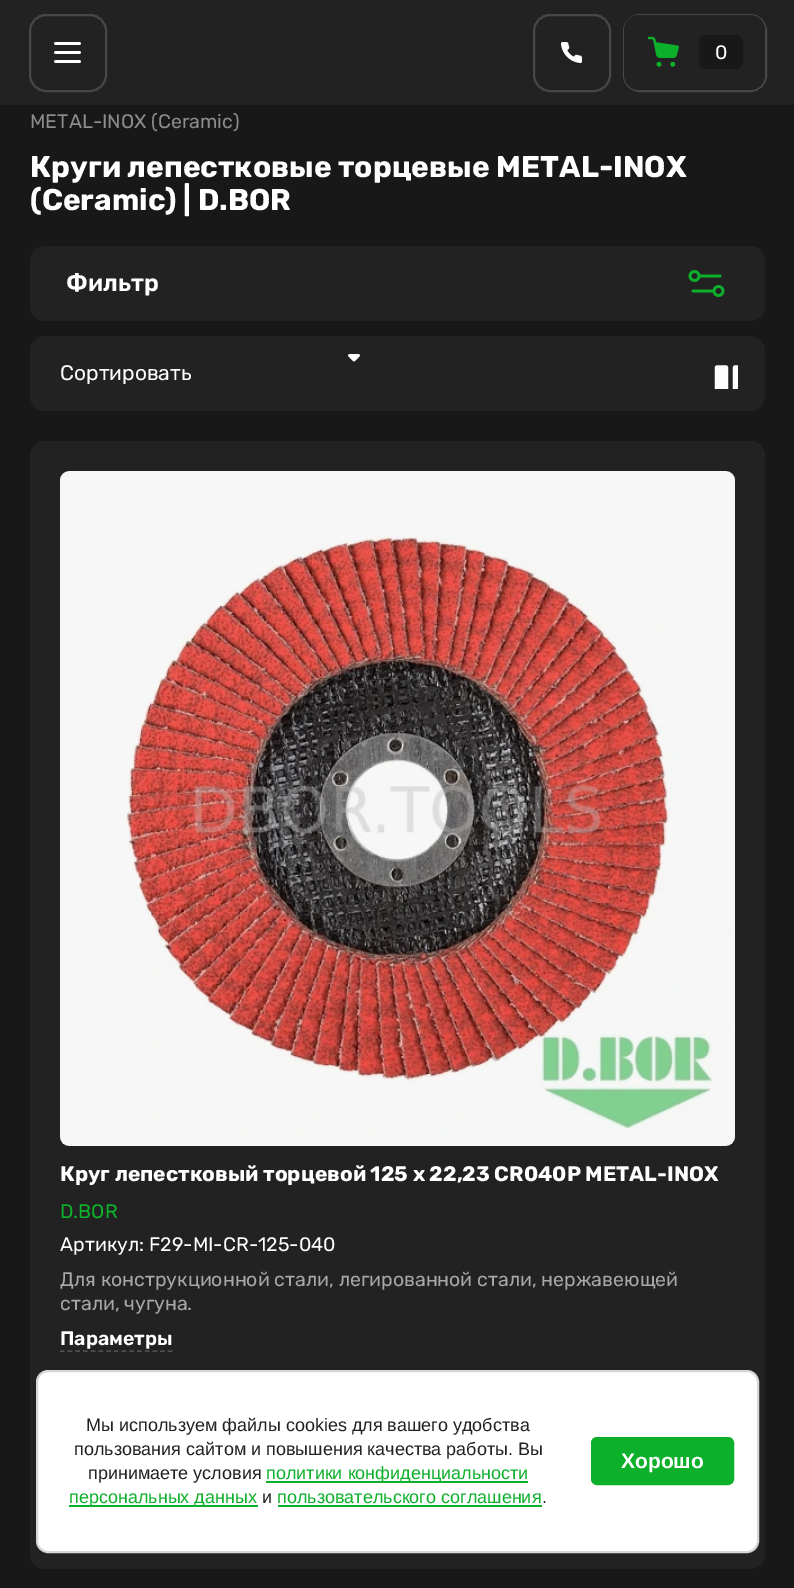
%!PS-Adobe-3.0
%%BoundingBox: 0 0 794 1588
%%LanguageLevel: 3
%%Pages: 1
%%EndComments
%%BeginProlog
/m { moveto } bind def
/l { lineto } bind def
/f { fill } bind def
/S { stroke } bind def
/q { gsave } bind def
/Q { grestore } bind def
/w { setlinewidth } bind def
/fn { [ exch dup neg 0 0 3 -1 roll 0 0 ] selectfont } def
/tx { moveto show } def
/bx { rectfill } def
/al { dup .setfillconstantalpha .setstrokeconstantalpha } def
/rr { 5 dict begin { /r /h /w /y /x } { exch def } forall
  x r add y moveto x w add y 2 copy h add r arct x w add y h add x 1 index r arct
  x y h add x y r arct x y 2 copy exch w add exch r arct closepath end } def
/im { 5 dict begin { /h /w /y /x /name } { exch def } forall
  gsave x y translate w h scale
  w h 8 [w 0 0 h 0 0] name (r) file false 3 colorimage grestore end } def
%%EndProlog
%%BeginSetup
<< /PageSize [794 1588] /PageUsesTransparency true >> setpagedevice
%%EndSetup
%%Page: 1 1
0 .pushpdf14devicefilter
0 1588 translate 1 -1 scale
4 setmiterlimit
0.094 setgray
0 0 794 1588 bx
0.133 setgray
0 0 794 105 bx
0.278 setgray
2 w
30 15 76 76 16 rr S
(image0.raw) 54 42 27 21 im
534 15 76 76 16 rr S
(image1.raw) 561 42 21 21 im
624 15 142 76 16 rr S
0.133 setgray
624 15 141 75 15 rr f
(image2.raw) 647 36 32 31 im
0.094 setgray
699 35 44 34 8 rr f
/Rubik-Regular 19.5 fn
1 setgray
(0) 715 59 tx
0.549 setgray
(METAL-INOX \(Ceramic\)) 30 128 tx
/Rubik-Bold 30 fn
1 setgray
(Круги лепестковые торцевые METAL-INOX) 30 177 tx
(\(Ceramic\) | D.BOR) 30 210 tx
0.133 setgray
30 246 735 75 15 rr f
/Rubik-SemiBold 24 fn
1 setgray
(Фильтр) 66 291 tx
(image3.raw) 688 270 37 27 im
0.133 setgray
30 336 735 75 15 rr f
(image4.raw) 348 354 12 8 im
/Rubik-Regular 21 fn
1 setgray
(Сортировать) 60 380 tx
(image5.raw) 714 365 24 24 im
0.133 setgray
30 441 735 1128 15 rr f
(image6.raw) 60 471 675 675 im
0.03 al
0 setgray
60 471 675 675 bx
/Rubik-Bold 21 fn
1 al
1 setgray
(Круг лепестковый торцевой 125 x 22,23 CR040P METAL-INOX) 60 1181 tx
/Rubik-Regular 19.5 fn
0.051 0.69 0.169 setrgbcolor
(D.BOR) 60 1218 tx
1 setgray
(Артикул: F29-MI-CR-125-040) 60 1251 tx
0.655 setgray
(Для конструкционной стали, легированной стали, нержавеющей) 60 1286 tx
(стали, чугуна.) 60 1310 tx
0.306 setgray
1.5 w
[4.5 3.21] 0 setdash
60 1351 m 172.5 1351 l S
/Rubik-SemiBold 19.5 fn
1 setgray
(Параметры) 60 1345 tx
37 1371 721 181 11 rr q f Q
0.839 setgray
2 w
[] 0 setdash
S
/LiberationSans-Regular 18 fn
0.129 setgray
(Мы используем файлы cookies для вашего удобства) 86 1431 tx
(пользования сайтом и повышения качества работы. Вы) 74 1455 tx
(принимаете условия) 88 1479 tx
0.051 0.69 0.169 setrgbcolor
266 1481 262 2 bx
(политики конфиденциальности) 266 1479 tx
69 1505 189 2 bx
(персональных данных) 69 1503 tx
0.129 setgray
(и) 262 1503 tx
0.051 0.69 0.169 setrgbcolor
(пользовательского соглашения) 277 1503 tx
278 1505 264 2 bx
0.129 setgray
(.) 542 1503 tx
0.051 0.69 0.169 setrgbcolor
592 1438 141 46 5 rr q f Q
S
/LiberationSans-Bold 21 fn
1 setgray
(Хорошо) 621 1468 tx
.poppdf14devicefilter showpage
%%EOF
